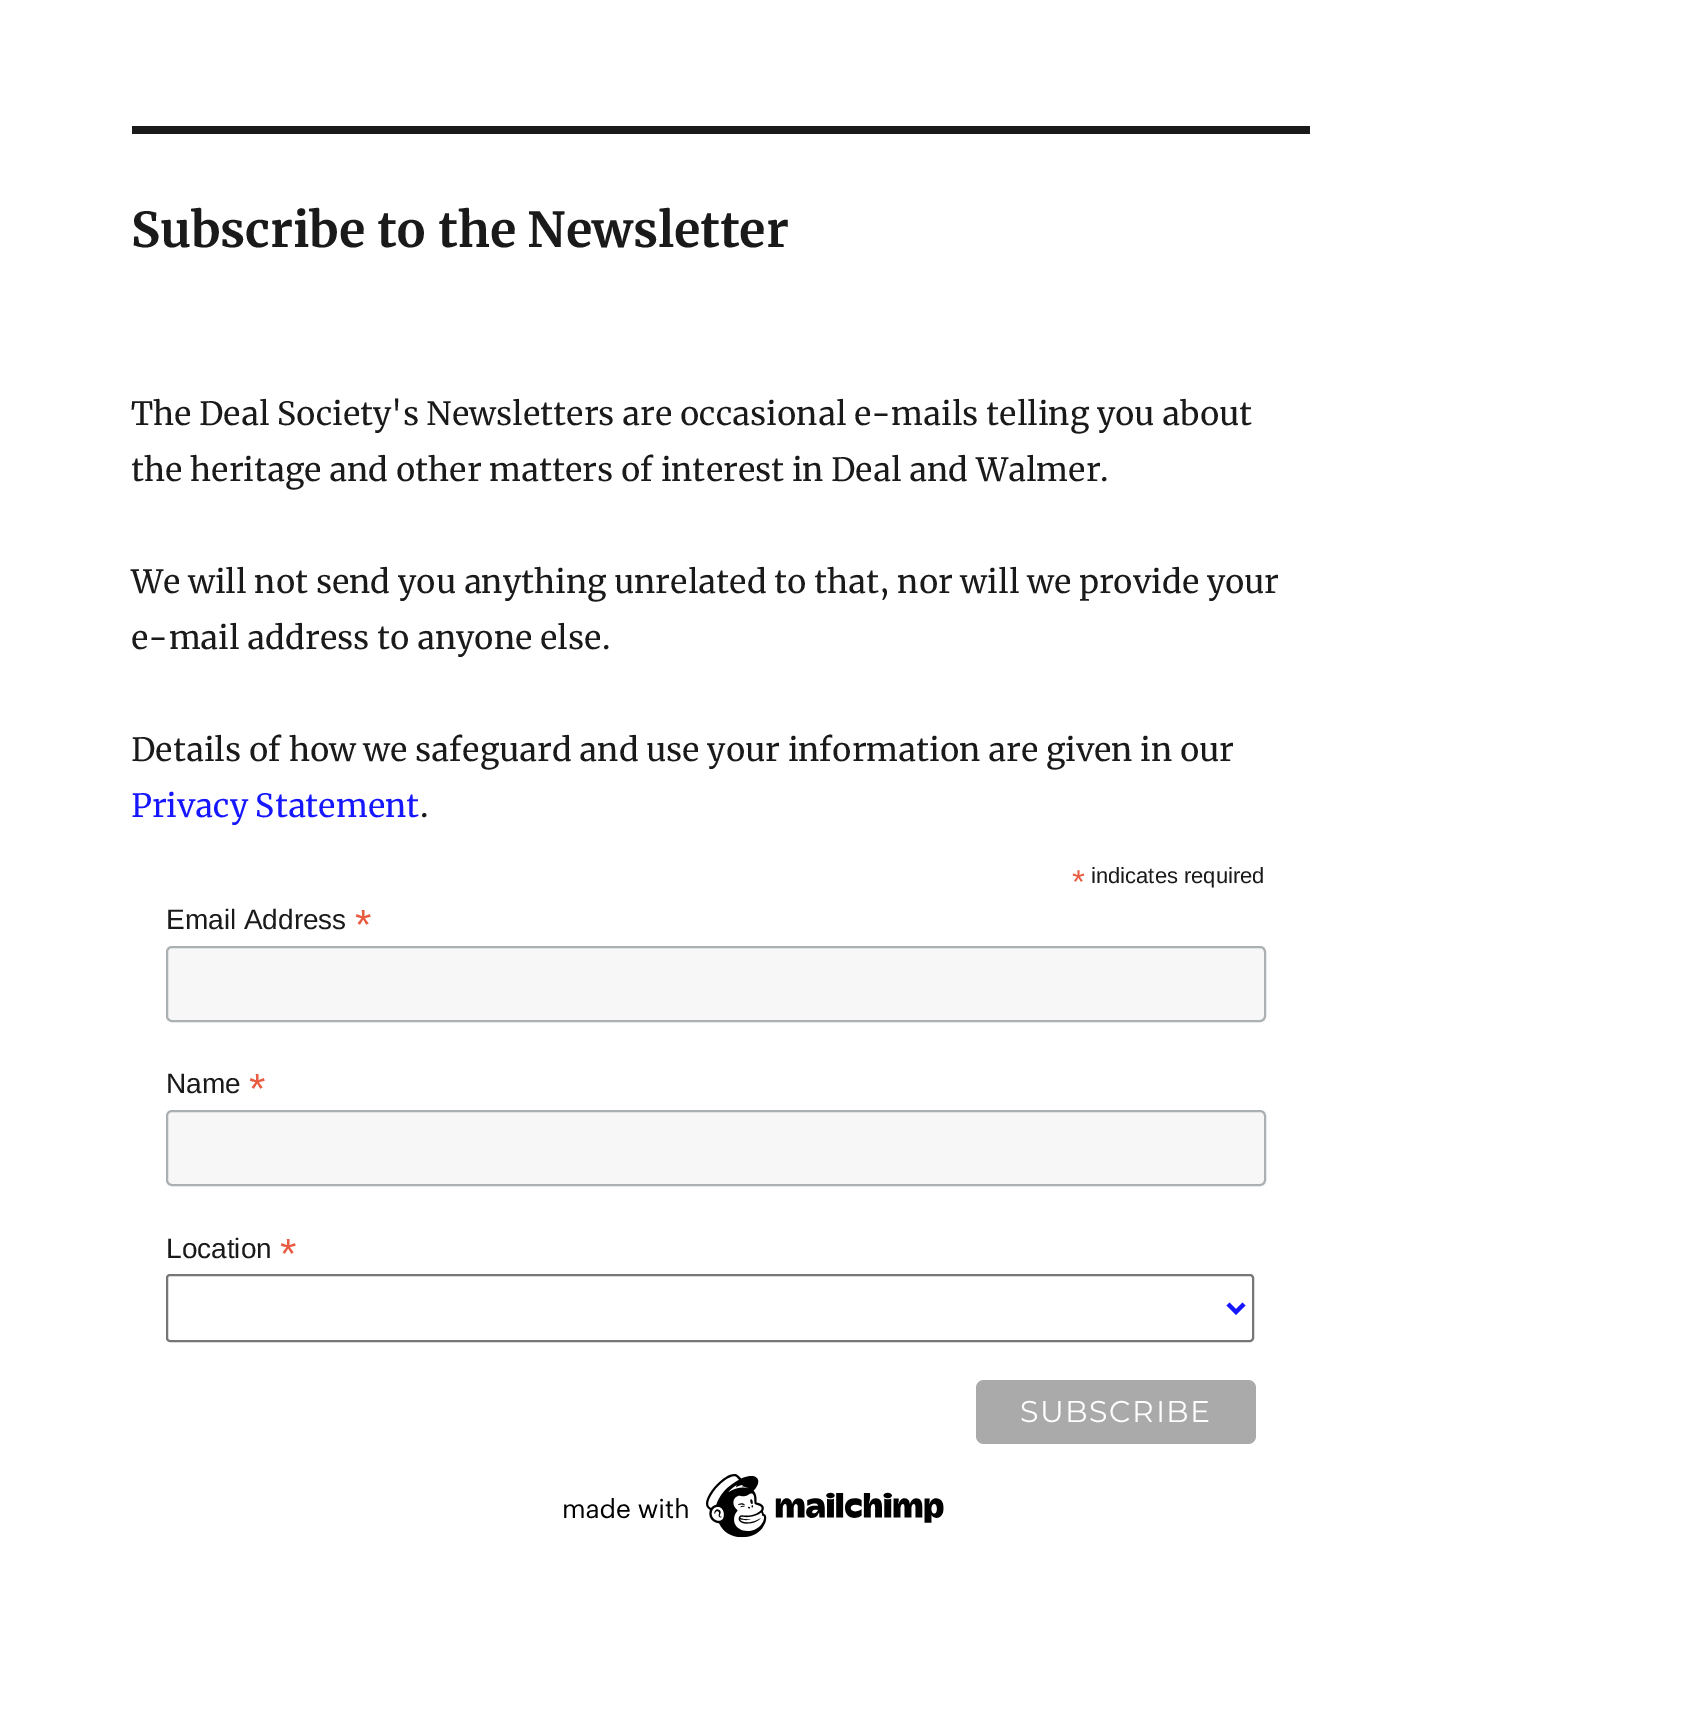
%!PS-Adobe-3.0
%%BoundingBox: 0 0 1704 1727
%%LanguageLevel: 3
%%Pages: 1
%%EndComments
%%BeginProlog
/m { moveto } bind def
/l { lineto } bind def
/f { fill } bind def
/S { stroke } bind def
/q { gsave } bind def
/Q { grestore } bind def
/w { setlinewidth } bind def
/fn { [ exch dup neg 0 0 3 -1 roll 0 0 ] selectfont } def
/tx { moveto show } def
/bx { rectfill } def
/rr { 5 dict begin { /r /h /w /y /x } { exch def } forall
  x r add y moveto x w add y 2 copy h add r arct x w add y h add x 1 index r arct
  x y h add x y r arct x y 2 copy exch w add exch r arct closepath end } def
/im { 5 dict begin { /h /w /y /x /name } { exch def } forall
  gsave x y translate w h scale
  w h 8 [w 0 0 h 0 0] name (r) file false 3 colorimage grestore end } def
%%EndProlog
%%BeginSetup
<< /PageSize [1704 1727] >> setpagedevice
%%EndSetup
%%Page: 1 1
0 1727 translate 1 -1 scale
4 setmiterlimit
1 setgray
0 0 1704 1727 bx
0.102 setgray
132 126 1178 8 bx
/Merriweather-Bold 48 fn
(Subscribe to the Newsletter) 131 247 tx
/Merriweather-Regular 32 fn
(The Deal Society's Newsletters are occasional e-mails telling you about) 131 425 tx
(the heritage and other matters of interest in Deal and Walmer.) 131 481 tx
(We will not send you anything unrelated to that, nor will we provide your) 131 593 tx
(e-mail address to anyone else.) 131 649 tx
(Details of how we safeguard and use your information are given in our) 131 761 tx
0.086 0.086 1 setrgbcolor
(Privacy Statement) 131 817 tx
0.102 setgray
(.) 420 817 tx
/LiberationSans-Regular 33 fn
0.91 0.361 0.255 setrgbcolor
(*) 1072 893 tx
/LiberationSans-Regular 22 fn
0.102 setgray
(indicates required) 1091 883 tx
/LiberationSans-Regular 28 fn
(Email Address) 166 929 tx
/LiberationSans-Regular 42 fn
0.91 0.361 0.255 setrgbcolor
(*) 355 939 tx
0.969 setgray
167 947 1098 74 5 rr q f Q
0.671 0.69 0.698 setrgbcolor
2 w
S
/LiberationSans-Regular 28 fn
0.102 setgray
(Name) 166 1093 tx
/LiberationSans-Regular 42 fn
0.91 0.361 0.255 setrgbcolor
(*) 249 1103 tx
0.969 setgray
167 1111 1098 74 5 rr q f Q
0.671 0.69 0.698 setrgbcolor
S
/LiberationSans-Regular 28 fn
0.102 setgray
(Location) 166 1258 tx
/LiberationSans-Regular 42 fn
0.91 0.361 0.255 setrgbcolor
(*) 280 1268 tx
0.463 setgray
167 1275 1086 66 3 rr S
0.086 0.086 1 setrgbcolor
4 w
1228 1304 m 1236 1312 l 1244 1304 l S
0.667 setgray
976 1380 280 64 8 rr f
/Montserrat-Thin 30 fn
1 setgray
1020 1422 m 1.5 0 (SUBSCRIBE) ashow
(image0.raw) 564 1474 380 64 im
showpage
%%EOF
